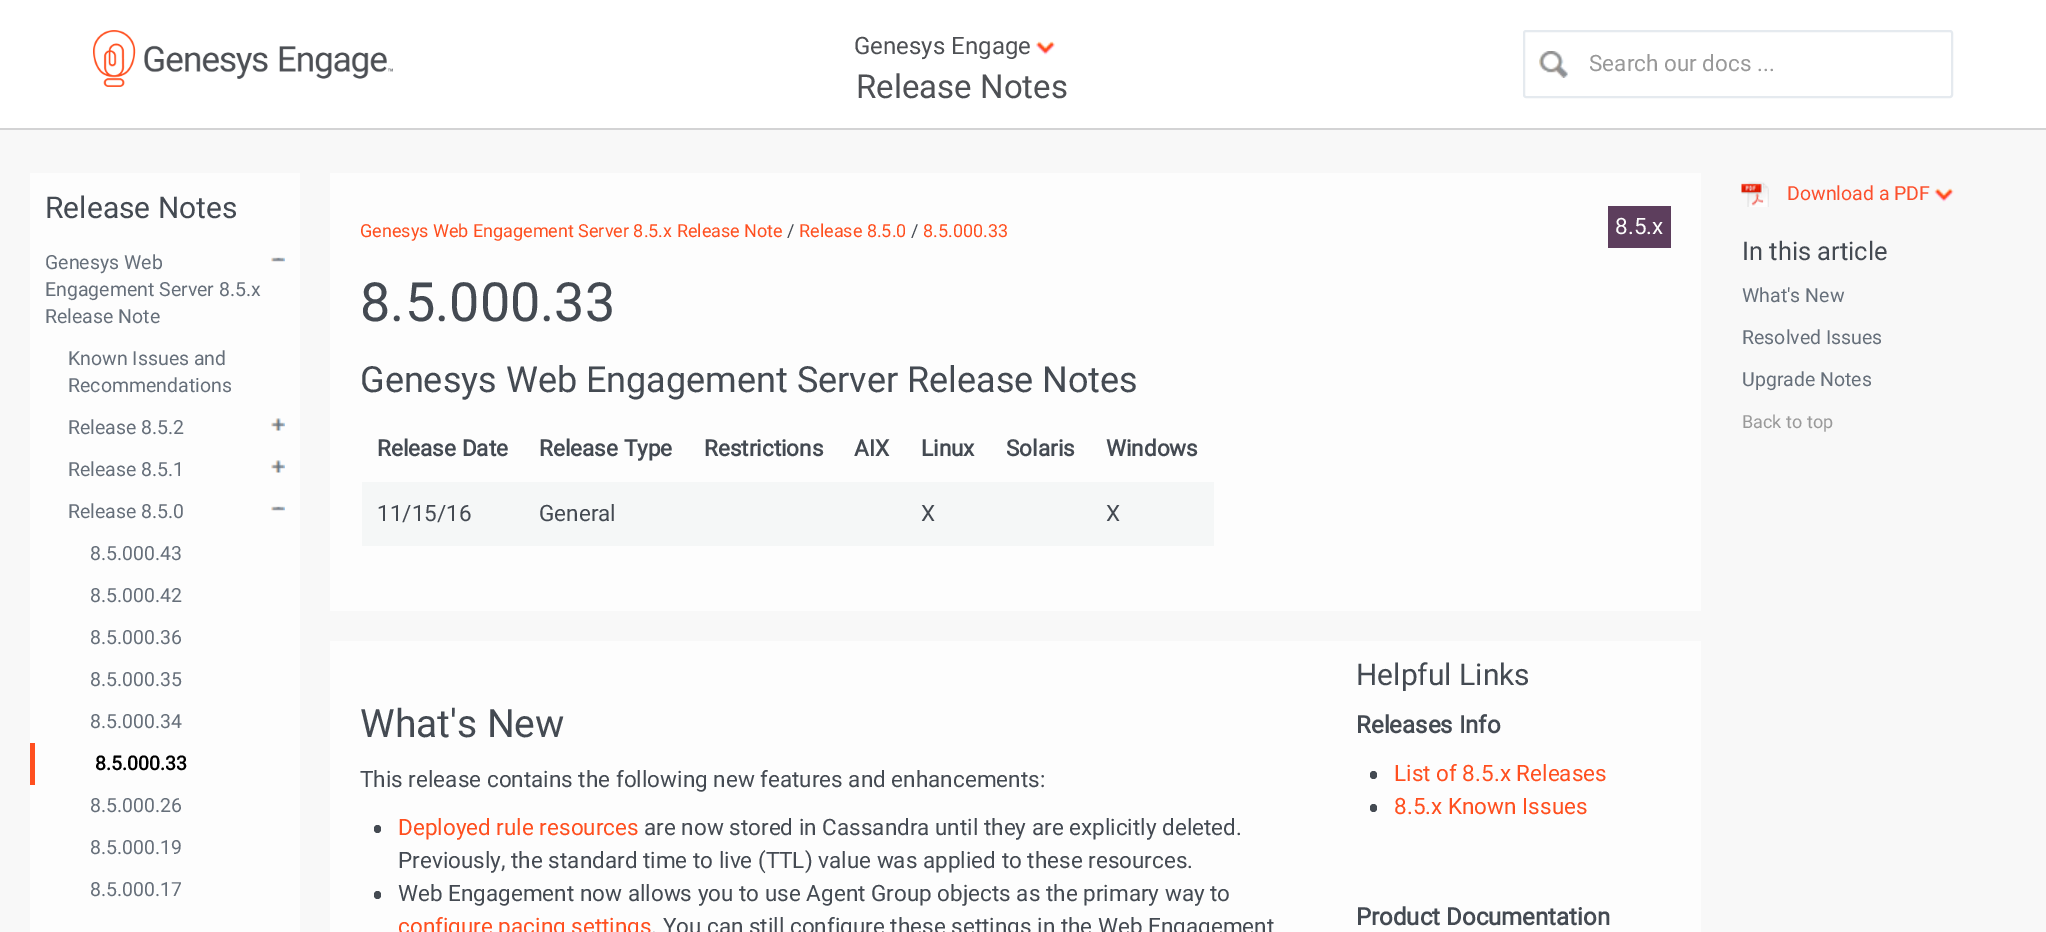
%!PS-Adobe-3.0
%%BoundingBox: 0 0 2046 932
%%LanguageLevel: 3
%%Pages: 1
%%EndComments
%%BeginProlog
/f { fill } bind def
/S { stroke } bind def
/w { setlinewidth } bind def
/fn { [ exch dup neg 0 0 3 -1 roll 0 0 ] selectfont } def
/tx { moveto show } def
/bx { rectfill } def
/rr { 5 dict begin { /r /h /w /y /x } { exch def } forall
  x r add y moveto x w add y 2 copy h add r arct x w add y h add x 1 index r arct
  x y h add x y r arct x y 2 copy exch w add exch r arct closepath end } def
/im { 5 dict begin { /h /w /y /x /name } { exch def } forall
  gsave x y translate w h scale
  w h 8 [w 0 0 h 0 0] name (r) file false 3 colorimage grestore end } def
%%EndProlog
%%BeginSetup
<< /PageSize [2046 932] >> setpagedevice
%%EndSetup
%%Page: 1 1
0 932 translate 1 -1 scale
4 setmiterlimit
0.973 setgray
0 0 2046 932 bx
1 setgray
0 0 2046 128 bx
0.827 0.827 0.831 setrgbcolor
0 128 2046 2 bx
(image0.raw) 93 30 300 57 im
/Roboto-Regular 24 fn
0.306 0.314 0.329 setrgbcolor
(Genesys Engage) 854 54 tx
(image1.raw) 1036 41 19 14 im
/Roboto-Regular 33 fn
(Release Notes) 856 98 tx
(image2.raw) 1539 51 29 27 im
0.898 0.918 0.937 setrgbcolor
2 w
1524 31 428 66 2 rr S
/Roboto-Regular 22.5 fn
0.6 setgray
(Search our docs ...) 1589 71 tx
0.992 setgray
30 173 270 759 bx
/Roboto-Regular 30 fn
0.267 0.29 0.322 setrgbcolor
(Release Notes) 45 218 tx
/Roboto-Regular 19.5 fn
0.4 0.435 0.478 setrgbcolor
(Genesys Web) 45 269 tx
(Engagement Server 8.5.x) 45 296 tx
(Release Note) 45 323 tx
(image3.raw) 271 257 14 5 im
(Known Issues and) 68 365 tx
(Recommendations) 68 392 tx
(Release 8.5.2) 68 434 tx
(image4.raw) 271 418 14 13 im
(Release 8.5.1) 68 476 tx
(image4.raw) 271 460 14 13 im
(Release 8.5.0) 68 518 tx
(image3.raw) 271 506 14 5 im
(8.5.000.43) 90 560 tx
(8.5.000.42) 90 602 tx
(8.5.000.36) 90 644 tx
(8.5.000.35) 90 686 tx
(8.5.000.34) 90 728 tx
1 0.31 0.122 setrgbcolor
30 743 5 42 bx
/Roboto-Bold 19.5 fn
0 setgray
(8.5.000.33) 95 770 tx
/Roboto-Regular 19.5 fn
0.4 0.435 0.478 setrgbcolor
(8.5.000.26) 90 812 tx
(8.5.000.19) 90 854 tx
(8.5.000.17) 90 896 tx
0.992 setgray
330 173 1371 759 bx
/Roboto-Regular 18 fn
1 0.31 0.122 setrgbcolor
(Genesys Web Engagement Server 8.5.x Release Note) 360 237 tx
0.267 0.29 0.322 setrgbcolor
(/) 787 237 tx
1 0.31 0.122 setrgbcolor
(Release 8.5.0) 799 237 tx
0.267 0.29 0.322 setrgbcolor
(/) 911 237 tx
1 0.31 0.122 setrgbcolor
(8.5.000.33) 923 237 tx
0.365 0.243 0.365 setrgbcolor
1608 206 63 42 bx
/Roboto-Regular 22.5 fn
0.992 setgray
(8.5.x) 1615 234 tx
/Roboto-Regular 54 fn
0.267 0.29 0.322 setrgbcolor
(8.5.000.33) 360 321 tx
/Roboto-Regular 36 fn
(Genesys Web Engagement Server Release Notes) 360 392 tx
/Roboto-Bold 22.5 fn
(Release Date) 377 456 tx
(Release Type) 539 456 tx
(Restrictions) 704 456 tx
(AIX) 854 456 tx
(Linux) 921 456 tx
(Solaris) 1006 456 tx
(Windows) 1106 456 tx
0.961 0.969 0.969 setrgbcolor
362 482 852 64 bx
/Roboto-Regular 22.5 fn
0.267 0.29 0.322 setrgbcolor
(11/15/16) 377 521 tx
(General) 539 521 tx
(X) 921 521 tx
(X) 1106 521 tx
0.973 setgray
330 611 1371 30 bx
/Roboto-Regular 39 fn
0.267 0.29 0.322 setrgbcolor
(What's New) 360 737 tx
/Roboto-Regular 22.5 fn
(This release contains the following new features and enhancements:) 360 787 tx
374 825 7 8 3.5 rr f
1 0.31 0.122 setrgbcolor
(Deployed rule resources) 398 835 tx
0.267 0.29 0.322 setrgbcolor
(are now stored in Cassandra until they are explicitly deleted.) 644 835 tx
(Previously, the standard time to live \(TTL\) value was applied to these resources.) 398 868 tx
374 891 7 8 3.5 rr f
(Web Engagement now allows you to use Agent Group objects as the primary way to) 398 901 tx
1 0.31 0.122 setrgbcolor
(configure pacing settings) 398 934 tx
0.267 0.29 0.322 setrgbcolor
(. You can still configure these settings in the Web Engagement) 651 934 tx
/Roboto-Regular 30 fn
(Helpful Links) 1356 685 tx
/Roboto-Bold 24 fn
(Releases Info) 1356 733 tx
1370 771 7 8 3.5 rr f
/Roboto-Regular 22.5 fn
1 0.31 0.122 setrgbcolor
(List of 8.5.x Releases) 1394 781 tx
0.267 0.29 0.322 setrgbcolor
1370 804 7 8 3.5 rr f
1 0.31 0.122 setrgbcolor
(8.5.x Known Issues) 1394 814 tx
/Roboto-Bold 24 fn
0.267 0.29 0.322 setrgbcolor
(Product Documentation) 1356 925 tx
(image5.raw) 1741 181 28 26 im
/Roboto-Regular 19.5 fn
0.988 0.314 0.176 setrgbcolor
(Download a PDF) 1787 200 tx
(image6.raw) 1934 188 20 14 im
/Roboto-Regular 25.5 fn
0.267 0.29 0.322 setrgbcolor
(In this article) 1742 260 tx
/Roboto-Regular 19.5 fn
0.4 0.435 0.478 setrgbcolor
(What's New) 1742 302 tx
(Resolved Issues) 1742 344 tx
(Upgrade Notes) 1742 386 tx
/Roboto-Regular 18 fn
0.6 setgray
(Back to top) 1742 428 tx
showpage
%%EOF
